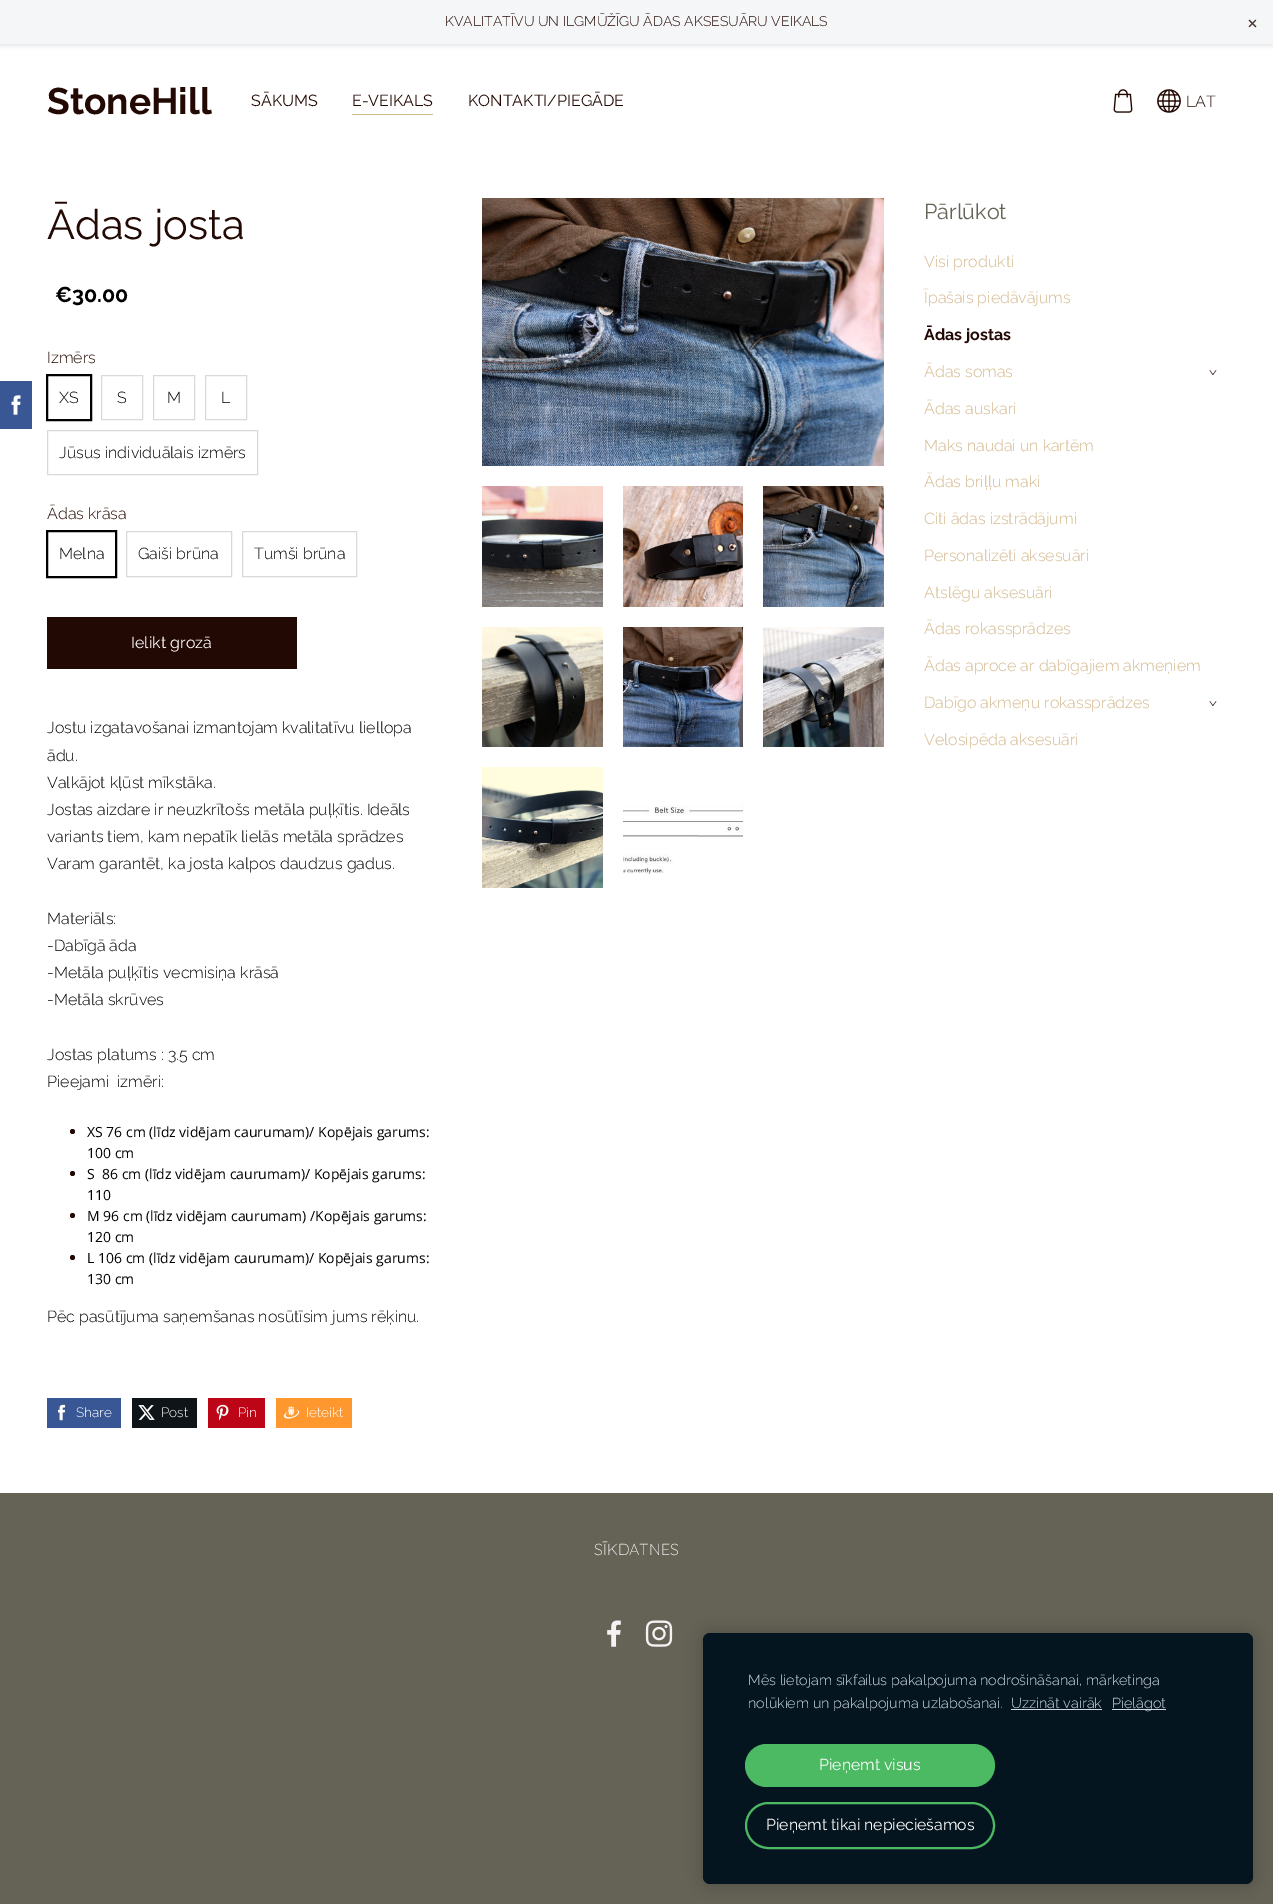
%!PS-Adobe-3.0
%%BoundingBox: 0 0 1273 1904
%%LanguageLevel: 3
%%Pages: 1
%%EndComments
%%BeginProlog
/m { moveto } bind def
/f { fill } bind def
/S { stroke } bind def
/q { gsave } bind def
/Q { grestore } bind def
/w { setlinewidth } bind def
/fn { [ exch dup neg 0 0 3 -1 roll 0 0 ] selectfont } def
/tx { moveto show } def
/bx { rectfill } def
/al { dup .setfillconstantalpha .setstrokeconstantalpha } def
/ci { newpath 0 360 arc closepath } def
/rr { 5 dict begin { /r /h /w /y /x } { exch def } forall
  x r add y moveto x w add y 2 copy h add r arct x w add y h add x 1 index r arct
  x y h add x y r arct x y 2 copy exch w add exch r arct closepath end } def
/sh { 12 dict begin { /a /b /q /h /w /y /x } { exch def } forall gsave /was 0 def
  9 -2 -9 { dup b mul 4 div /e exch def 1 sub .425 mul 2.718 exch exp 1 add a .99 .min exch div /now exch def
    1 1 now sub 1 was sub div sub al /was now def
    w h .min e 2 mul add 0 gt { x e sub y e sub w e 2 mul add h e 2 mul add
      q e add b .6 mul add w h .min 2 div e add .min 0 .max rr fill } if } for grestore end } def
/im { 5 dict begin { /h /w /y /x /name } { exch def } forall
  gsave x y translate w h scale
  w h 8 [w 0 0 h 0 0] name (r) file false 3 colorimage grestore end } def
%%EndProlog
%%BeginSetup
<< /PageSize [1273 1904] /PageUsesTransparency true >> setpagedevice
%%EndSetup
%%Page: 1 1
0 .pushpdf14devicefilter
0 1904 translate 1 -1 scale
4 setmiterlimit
0.396 0.384 0.337 setrgbcolor
0 0 1273 1904 bx
1 setgray
0 44 1273 1449 bx
0.227 0.341 0.584 setrgbcolor
0 381 32 48 bx
(image0.raw) 11 395 10 20 im
0 setgray
0 2 1273 44 0 2 0.1 sh
0.961 0.965 0.973 setrgbcolor
0 0 1273 44 bx
/Raleway-Light 14 fn
0.137 0.035 0.012 setrgbcolor
(KVALITATĪVU UN ILGMŪŽĪGU ĀDAS AKSESUĀRU VEIKALS) 445 26 tx
/Raleway-Regular 24 fn
0.302 0.22 0.204 setrgbcolor
(×) 1247 30 tx
/Raleway-Bold 37 fn
0.137 0.035 0.012 setrgbcolor
(StoneHill) 47 114 tx
/Raleway-Regular 16 fn
(SĀKUMS) 251 106 tx
(E-VEIKALS) 352 106 tx
0.827 0.722 0.549 setrgbcolor
352 114 81 1 bx
0.137 0.035 0.012 setrgbcolor
(KONTAKTI/PIEGĀDE) 468 106 tx
(image1.raw) 1113 89 20 24 im
(image2.raw) 1157 89 24 24 im
/Raleway-Light 16 fn
(LAT) 1186 107 tx
/Raleway-Regular 41.5 fn
(Ādas josta) 47 239 tx
/Raleway-Bold 21.5 fn
0 setgray
(€30.00) 55 302 tx
/Raleway-Light 16 fn
0.137 0.035 0.012 setrgbcolor
(Izmērs) 47 363 tx
0 setgray
47.5 375.5 43 44 rectstroke
46.5 374.5 45 46 rectstroke
(XS) 59 403 tx
0.851 setgray
101.5 375.5 41 44 rectstroke
0 setgray
(S) 117 403 tx
0.851 setgray
153.5 375.5 41 44 rectstroke
0 setgray
(M) 167 403 tx
0.851 setgray
205.5 375.5 41 44 rectstroke
0 setgray
(L) 221 403 tx
0.851 setgray
47.5 430.5 210 44 rectstroke
0 setgray
(Jūsus individuālais izmērs) 59 458 tx
0.137 0.035 0.012 setrgbcolor
(Ādas krāsa) 47 519 tx
0 setgray
47.5 531.5 68 45 rectstroke
46.5 530.5 70 47 rectstroke
(Melna) 59 559 tx
0.851 setgray
126.5 531.5 105 45 rectstroke
0 setgray
(Gaiši brūna) 138 559 tx
0.851 setgray
242.5 531.5 114 45 rectstroke
0 setgray
(Tumši brūna) 254 559 tx
0.137 0.035 0.012 setrgbcolor
47 617 250 52 bx
/Raleway-Regular 16 fn
1 setgray
(Ielikt grozā) 131 648 tx
/Raleway-Light 16 fn
0 setgray
(Jostu izgatavošanai izmantojam kvalitatīvu liellopa) 47 733 tx
(ādu.) 47 761 tx
(Valkājot kļūst mīkstāka.) 47 788 tx
(Jostas aizdare ir neuzkrītošs metāla puļķītis. Ideāls) 47 815 tx
(variants tiem, kam nepatīk lielās metāla sprādzes) 47 842 tx
(Varam garantēt, ka josta kalpos daudzus gadus.) 47 869 tx
(Materiāls:) 47 924 tx
(-Dabīgā āda) 47 951 tx
(-Metāla puļķītis vecmisiņa krāsā) 47 978 tx
(-Metāla skrūves) 47 1005 tx
(Jostas platums : 3.5 cm) 47 1060 tx
(Pieejami  izmēri:) 47 1087 tx
0.137 0.035 0.012 setrgbcolor
72.5 1131.5 2.5 ci f
/OpenSans-Regular 14 fn
0 setgray
(XS 76 cm \(līdz vidējam caurumam\)/ Kopējais garums:) 87 1137 tx
(100 cm) 87 1158 tx
0.137 0.035 0.012 setrgbcolor
72.5 1173.5 2.5 ci f
0 setgray
(S  86 cm \(līdz vidējam caurumam\)/ Kopējais garums:) 87 1179 tx
(110) 87 1200 tx
0.137 0.035 0.012 setrgbcolor
72.5 1215.5 2.5 ci f
0 setgray
(M 96 cm \(līdz vidējam caurumam\) /Kopējais garums:) 87 1221 tx
(120 cm) 87 1242 tx
0.137 0.035 0.012 setrgbcolor
72.5 1257.5 2.5 ci f
0 setgray
(L 106 cm \(līdz vidējam caurumam\)/ Kopējais garums:) 87 1263 tx
(130 cm) 87 1284 tx
/Raleway-Light 16 fn
(Pēc pasūtījuma saņemšanas nosūtīsim jums rēķinu.) 47 1322 tx
0.227 0.341 0.584 setrgbcolor
47 1398 74 30 bx
(image3.raw) 58 1404 8 17 im
/Raleway-Light 13.5 fn
1 setgray
(Share) 76 1417 tx
0.059 0.078 0.098 setrgbcolor
132 1398 65 30 bx
(image4.raw) 138 1405 17 15 im
1 setgray
(Post) 161 1417 tx
0.737 0.024 0.094 setrgbcolor
208 1398 57 30 bx
(image5.raw) 216 1404 13 17 im
1 setgray
(Pin) 238 1417 tx
0.996 0.592 0.176 setrgbcolor
276 1398 76 30 bx
(image6.raw) 283 1406 17 13 im
1 setgray
(Ieteikt) 306 1417 tx
(image7.raw) 482 198 402 268 im
(image8.raw) 482 486 121 121 im
(image9.raw) 623 486 120 121 im
(image10.raw) 763 486 121 121 im
(image11.raw) 482 627 121 120 im
(image12.raw) 623 627 120 120 im
(image13.raw) 763 627 121 120 im
(image14.raw) 482 767 121 121 im
(image15.raw) 623 799 120 76 im
/Raleway-Regular 21.5 fn
0.396 0.384 0.337 setrgbcolor
(Pārlūkot) 924 219 tx
/Raleway-Light 16 fn
0.827 0.722 0.549 setrgbcolor
(Visi produkti) 924 267 tx
(Īpašais piedāvājums) 924 303 tx
/Raleway-Bold 16 fn
0.137 0.035 0.012 setrgbcolor
(Ādas jostas) 924 340 tx
/Raleway-Light 16 fn
0.827 0.722 0.549 setrgbcolor
(Ādas somas) 924 377 tx
/Raleway-Light 19 fn
0.137 0.035 0.012 setrgbcolor
q 1208 369 translate 90 rotate 0 0 m (›) show Q
/Raleway-Light 16 fn
0.827 0.722 0.549 setrgbcolor
(Ādas auskari) 924 414 tx
(Maks naudai un kartēm) 924 451 tx
(Ādas briļļu maki) 924 487 tx
(Citi ādas izstrādājumi) 924 524 tx
(Personalizēti aksesuāri) 924 561 tx
(Atslēgu aksesuāri) 924 598 tx
(Ādas rokassprādzes) 924 634 tx
(Ādas aproce ar dabīgajiem akmeņiem) 924 671 tx
(Dabīgo akmeņu rokassprādzes) 924 708 tx
/Raleway-Light 19 fn
0.137 0.035 0.012 setrgbcolor
q 1208 700 translate 90 rotate 0 0 m (›) show Q
/Raleway-Light 16 fn
0.827 0.722 0.549 setrgbcolor
(Velosipēda aksesuāri) 924 745 tx
/Quicksand-Light 16 fn
0.957 0.949 0.953 setrgbcolor
(SĪKDATNES) 594 1555 tx
(image16.raw) 607 1620 14 27 im
(image17.raw) 645 1620 28 27 im
0 setgray
703 1633 550 251 7 8.5 0.2 sh
0.016 0.082 0.122 setrgbcolor
703 1633 550 251 7 rr f
/Raleway-Light 14.4 fn
0.824 0.863 0.902 setrgbcolor
(Mēs lietojam sīkfailus pakalpojuma nodrošināšanai, mārketinga) 748 1685 tx
(nolūkiem un pakalpojuma uzlabošanai.) 748 1708 tx
(Uzzināt vairāk) 1011 1708 tx
1011 1709 91 1 bx
1112 1709 54 1 bx
(Pielāgot) 1112 1708 tx
0.298 0.725 0.388 setrgbcolor
745 1744 250 43 21.5 rr f
/Raleway-Regular 15.8 fn
1 setgray
(Pieņemt visus) 819 1770 tx
0.298 0.725 0.388 setrgbcolor
2 w
746 1803 248 45 22.5 rr S
1 setgray
(Pieņemt tikai nepieciešamos) 766 1830 tx
.poppdf14devicefilter showpage
%%EOF
